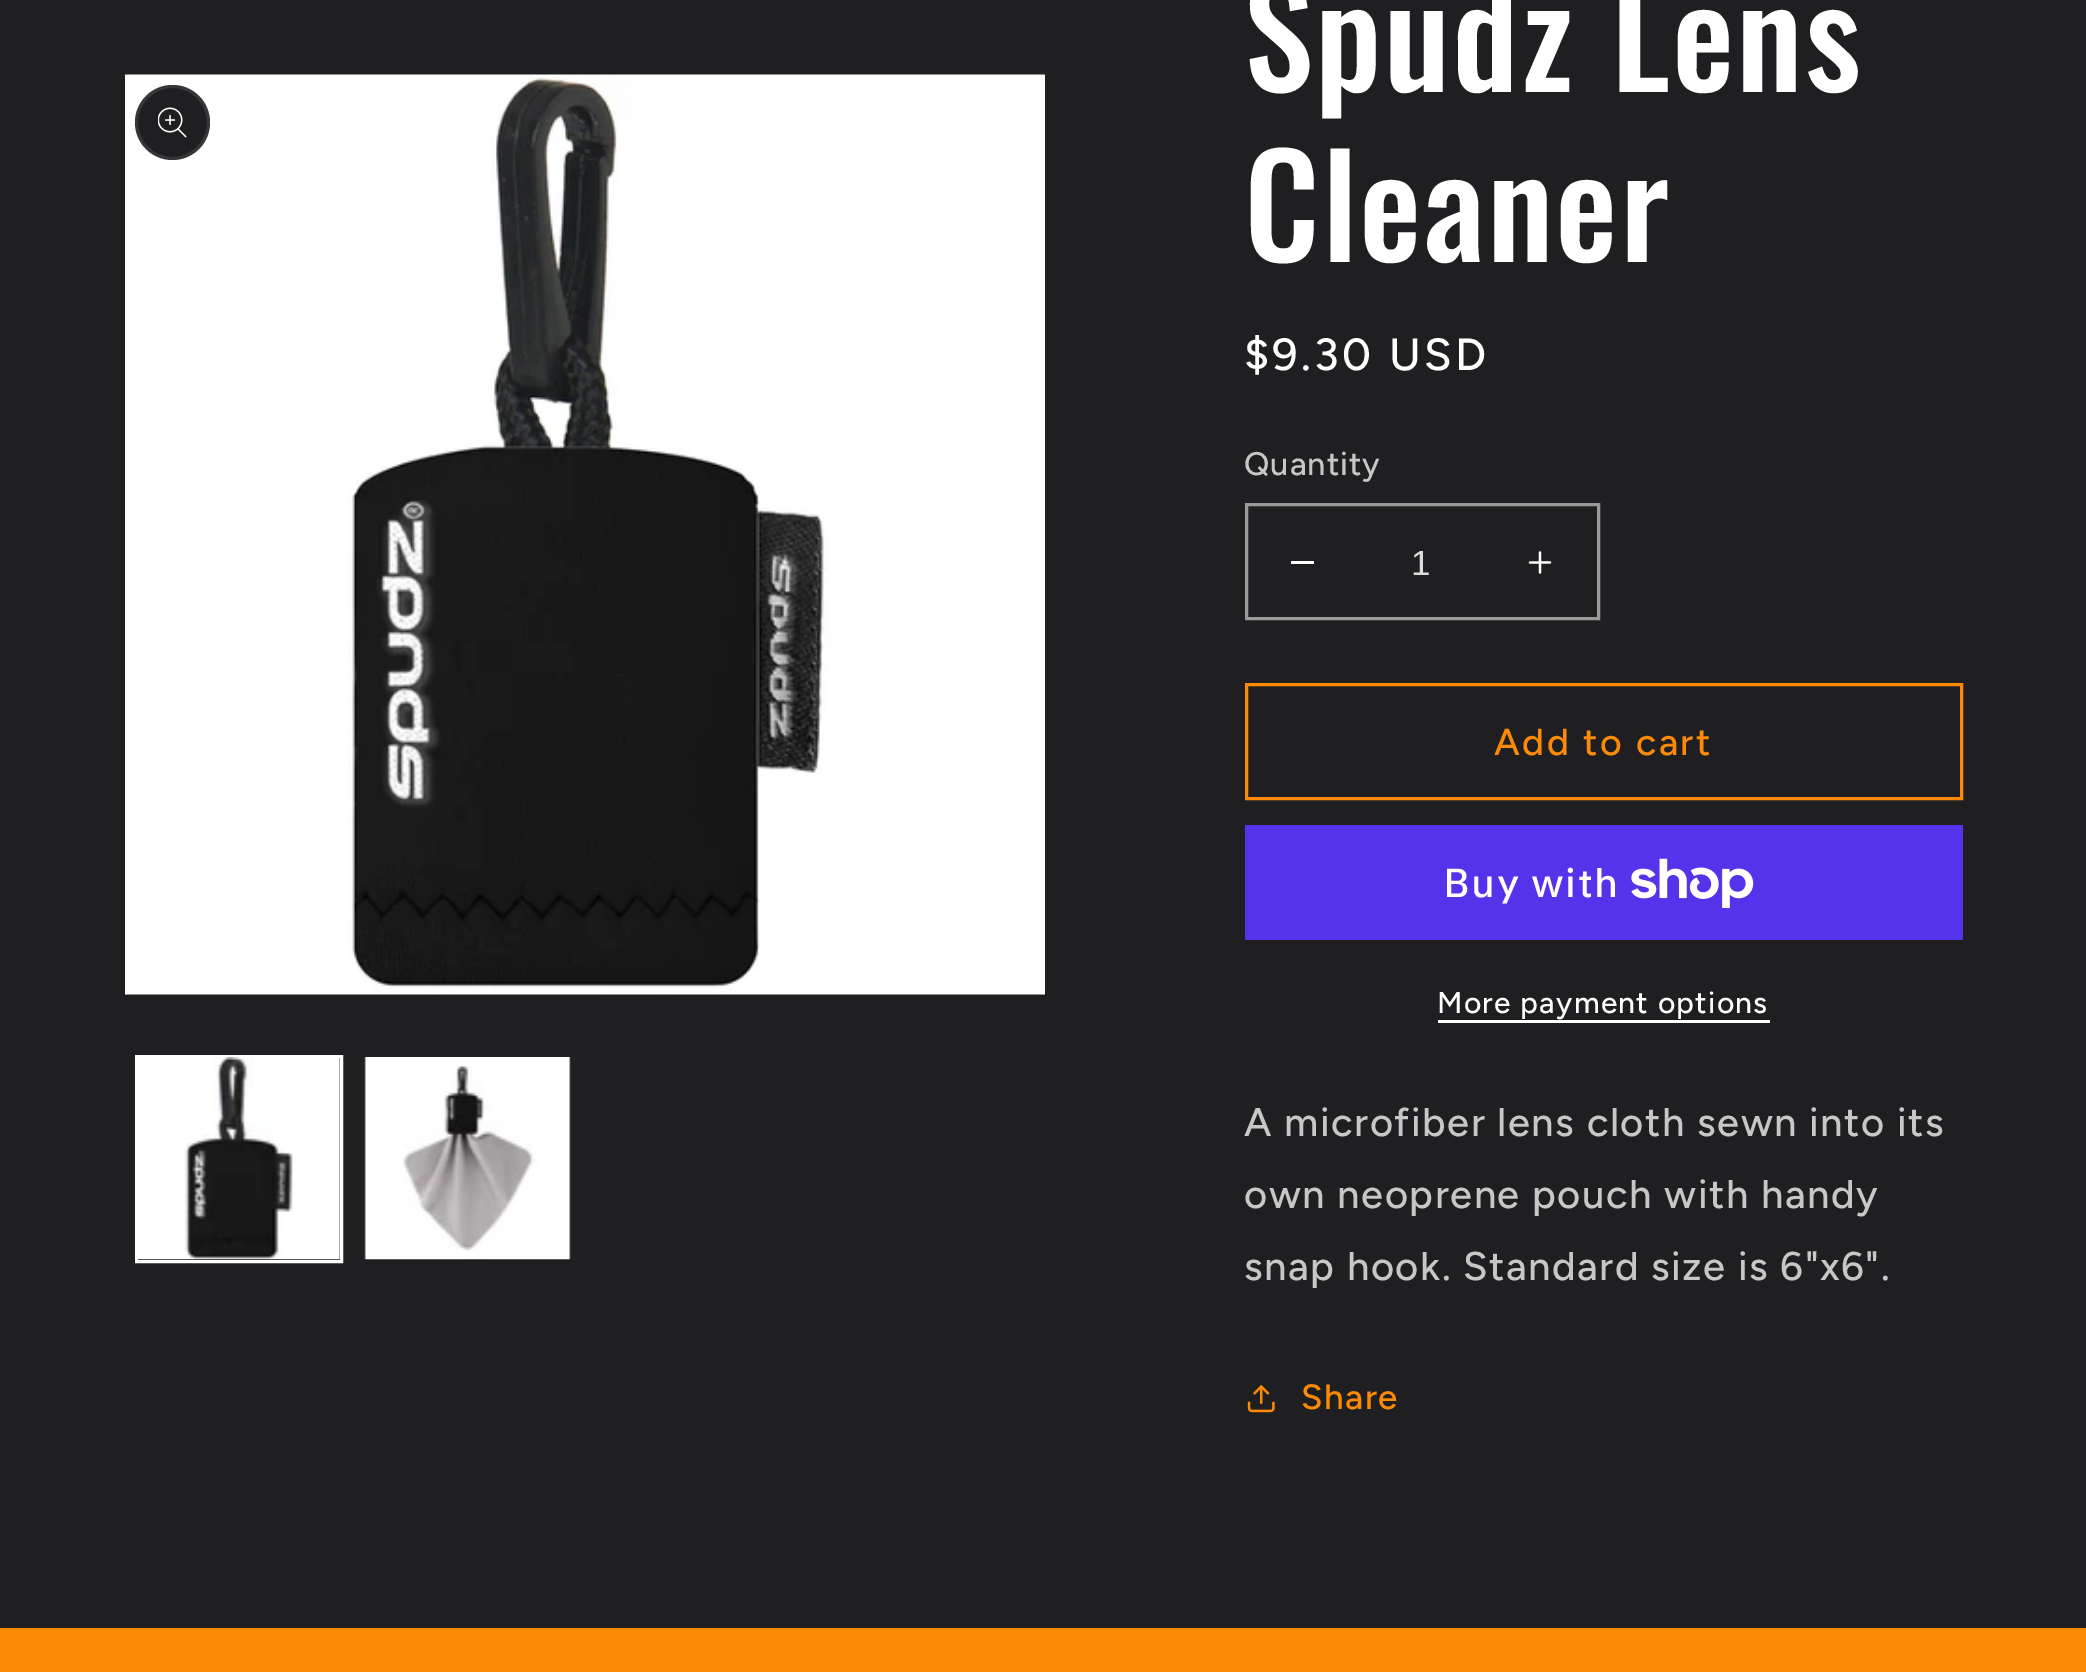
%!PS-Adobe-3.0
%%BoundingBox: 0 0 2086 1672
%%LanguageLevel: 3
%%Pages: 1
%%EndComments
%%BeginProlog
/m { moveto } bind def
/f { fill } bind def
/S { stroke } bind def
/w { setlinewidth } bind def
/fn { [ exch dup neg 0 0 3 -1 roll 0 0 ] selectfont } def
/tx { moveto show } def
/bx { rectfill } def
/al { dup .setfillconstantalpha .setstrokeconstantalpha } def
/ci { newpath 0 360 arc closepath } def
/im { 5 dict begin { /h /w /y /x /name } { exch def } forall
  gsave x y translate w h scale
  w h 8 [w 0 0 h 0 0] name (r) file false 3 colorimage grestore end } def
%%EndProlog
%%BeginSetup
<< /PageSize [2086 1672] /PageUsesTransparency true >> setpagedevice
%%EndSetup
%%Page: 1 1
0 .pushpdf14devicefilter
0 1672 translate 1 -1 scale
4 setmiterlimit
0.122 0.122 0.129 setrgbcolor
0 0 2086 1672 bx
(image0.raw) 125 74 920 921 im
172.5 122.5 37.5 ci f
0.1 al
1 setgray
3 w
172.5 122.5 36 ci S
1 al
(image1.raw) 158 107 29 31 im
136.5 1056.5 205 205 rectstroke
(image2.raw) 138 1057 202 203 im
(image3.raw) 364 1057 207 203 im
/Oswald-Medium 140 fn
1244 92 m 2.1 0 (Spudz Lens) ashow
1244 262 m 2.1 0 (Cleaner) ashow
/Figtree-Medium 45 fn
1244 370 m 3.25 0 ($9.30 USD) ashow
/Figtree-Medium 32.5 fn
0.78 0.78 0.784 setrgbcolor
1244 475 m 1 0 (Quantity) ashow
1 setgray
1291 561 23 3 bx
(image4.raw) 1528 551 24 23 im
0.604 0.604 0.608 setrgbcolor
1246.5 504.5 352 114 rectstroke
/LiberationSans-Regular 35 fn
0.867 0.867 0.871 setrgbcolor
(1) 1411 575 tx
0.988 0.541 0.024 setrgbcolor
1246.5 684.5 715 114 rectstroke
/Figtree-Medium 37.5 fn
1494 755 m 2.5 0 (Add to cart) ashow
0.329 0.2 0.922 setrgbcolor
1245 825 718 115 bx
/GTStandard-Medium 40 fn
1 setgray
1443 897 m 1.5 0 (Buy with) ashow
(image5.raw) 1631 858 123 50 im
/Figtree-Medium 30 fn
1437 1013 m 1.25 0 (More payment options) ashow
1438 1020 332 3 bx
/Figtree-Medium 40 fn
0.78 0.78 0.784 setrgbcolor
1244 1136 m 1.5 0 (A microfiber lens cloth sewn into its) ashow
1244 1208 m 1.5 0 (own neoprene pouch with handy) ashow
1244 1280 m 1.5 0 (snap hook. Standard size is 6"x6".) ashow
(image6.raw) 1247 1385 28 28 im
/Figtree-Medium 35 fn
0.988 0.541 0.024 setrgbcolor
1301 1409 m 1.5 0 (Share) ashow
0 1628 2086 44 bx
.poppdf14devicefilter showpage
%%EOF
